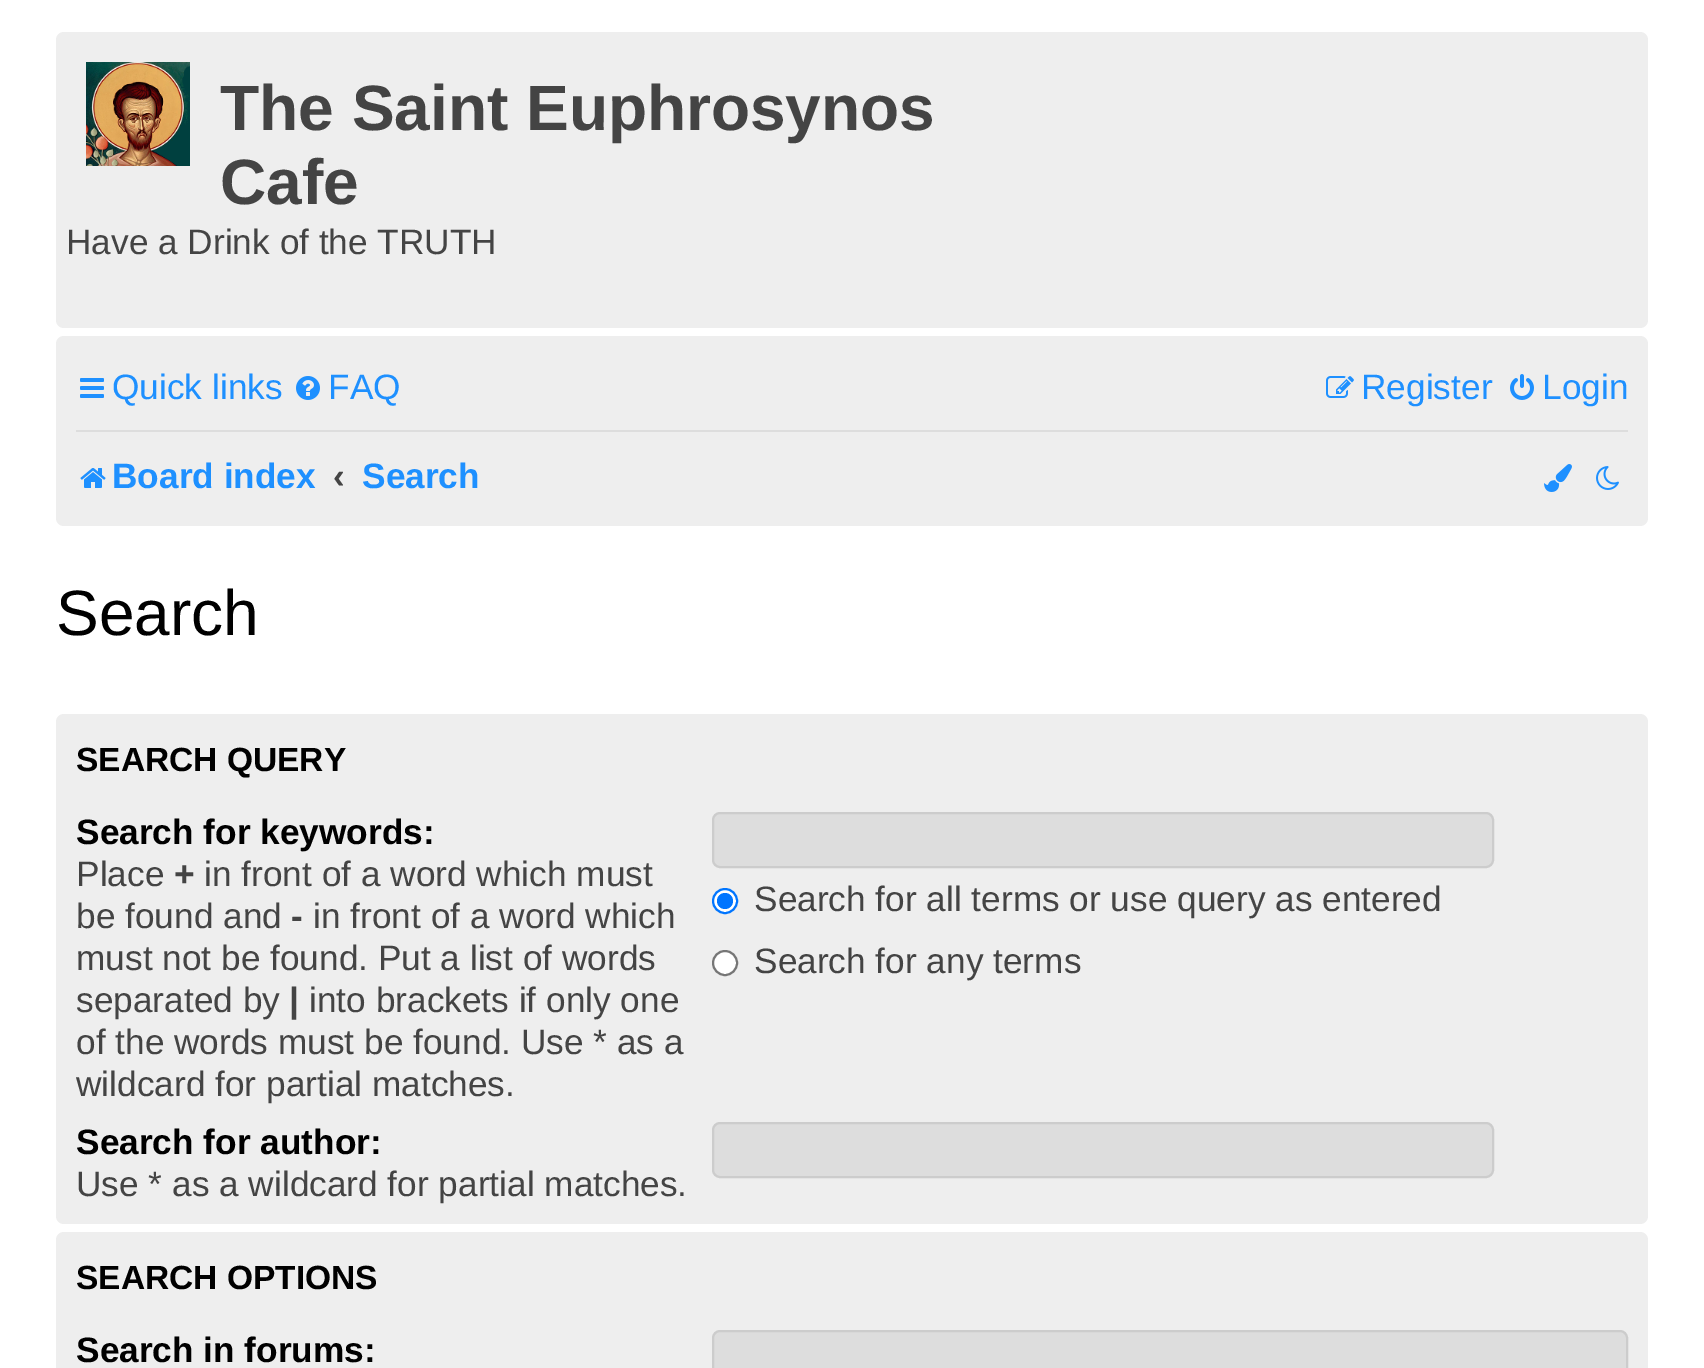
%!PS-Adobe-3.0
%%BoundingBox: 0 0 1704 1368
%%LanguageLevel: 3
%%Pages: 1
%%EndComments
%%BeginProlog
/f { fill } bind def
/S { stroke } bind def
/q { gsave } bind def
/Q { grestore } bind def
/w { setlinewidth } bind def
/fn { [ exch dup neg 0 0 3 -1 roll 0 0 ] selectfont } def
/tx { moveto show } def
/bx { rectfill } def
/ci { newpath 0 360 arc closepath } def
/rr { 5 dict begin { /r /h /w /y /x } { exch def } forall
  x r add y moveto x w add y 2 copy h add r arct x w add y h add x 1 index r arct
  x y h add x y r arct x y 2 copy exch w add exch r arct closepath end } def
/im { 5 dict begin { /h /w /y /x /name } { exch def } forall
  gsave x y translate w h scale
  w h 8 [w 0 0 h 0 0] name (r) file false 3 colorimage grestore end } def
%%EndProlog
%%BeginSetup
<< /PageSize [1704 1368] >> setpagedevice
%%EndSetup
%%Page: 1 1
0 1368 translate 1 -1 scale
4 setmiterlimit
1 setgray
0 0 1704 1368 bx
0.933 setgray
56 32 1592 296 8 rr f
(image0.raw) 86 62 104 104 im
/LiberationSans-Bold 64 fn
0.267 setgray
(The Saint Euphrosynos) 220 130 tx
(Cafe) 220 204 tx
/LiberationSans-Regular 35.25 fn
(Have a Drink of the TRUTH) 66 254 tx
0.933 setgray
56 336 1592 190 8 rr f
(image1.raw) 80 378 24 20 im
0.118 0.565 1 setrgbcolor
(Quick links) 112 399 tx
(image2.raw) 296 376 24 24 im
(FAQ) 328 399 tx
(image3.raw) 1326 376 28 22 im
(Register) 1361 399 tx
(image4.raw) 1510 374 24 26 im
(Login) 1542 399 tx
0.867 setgray
76 430 1552 2 bx
(image5.raw) 80 468 26 20 im
/LiberationSans-Bold 35.25 fn
0.118 0.565 1 setrgbcolor
(Board index) 112 488 tx
0.267 setgray
(‹) 333 488 tx
0.118 0.565 1 setrgbcolor
(Search) 362 488 tx
(image6.raw) 1544 464 28 28 im
(image7.raw) 1596 466 23 24 im
/LiberationSans-Regular 64 fn
0 setgray
(Search) 56 635 tx
0.933 setgray
56 714 1592 510 8 rr f
/LiberationSans-Bold 33.5 fn
0 setgray
(SEARCH QUERY) 76 771 tx
/LiberationSans-Bold 35.25 fn
(Search for keywords:) 76 844 tx
/LiberationSans-Regular 35.25 fn
0.267 setgray
(Place) 76 886 tx
/LiberationSans-Bold 35.25 fn
(+) 174 886 tx
/LiberationSans-Regular 35.25 fn
(in front of a word which must) 204 886 tx
(be found and) 76 928 tx
/LiberationSans-Bold 35.25 fn
(-) 291 928 tx
/LiberationSans-Regular 35.25 fn
(in front of a word which) 313 928 tx
(must not be found. Put a list of words) 76 970 tx
(separated by) 76 1012 tx
/LiberationSans-Bold 35.25 fn
(|) 289 1012 tx
/LiberationSans-Regular 35.25 fn
(into brackets if only one) 309 1012 tx
(of the words must be found. Use * as a) 76 1054 tx
(wildcard for partial matches.) 76 1096 tx
0.867 setgray
713 813 780 54 7 rr q f Q
0.8 setgray
2 w
S
1 setgray
725 901 12 ci q f Q
0 0.459 1 setrgbcolor
S
725 901 8 ci f
0.267 setgray
(Search for all terms or use query as entered) 754 911 tx
1 setgray
725 963 12 ci q f Q
0.463 setgray
S
0.267 setgray
(Search for any terms) 754 973 tx
/LiberationSans-Bold 35.25 fn
0 setgray
(Search for author:) 76 1154 tx
/LiberationSans-Regular 35.25 fn
0.267 setgray
(Use * as a wildcard for partial matches.) 76 1196 tx
0.867 setgray
713 1123 780 54 7 rr q f Q
0.8 setgray
S
0.933 setgray
56 1232 1592 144 8 rr f
/LiberationSans-Bold 33.5 fn
0 setgray
(SEARCH OPTIONS) 76 1289 tx
/LiberationSans-Bold 35.25 fn
(Search in forums:) 76 1362 tx
0.867 setgray
713 1331 914 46 7 rr q f Q
0.8 setgray
S
showpage
%%EOF
